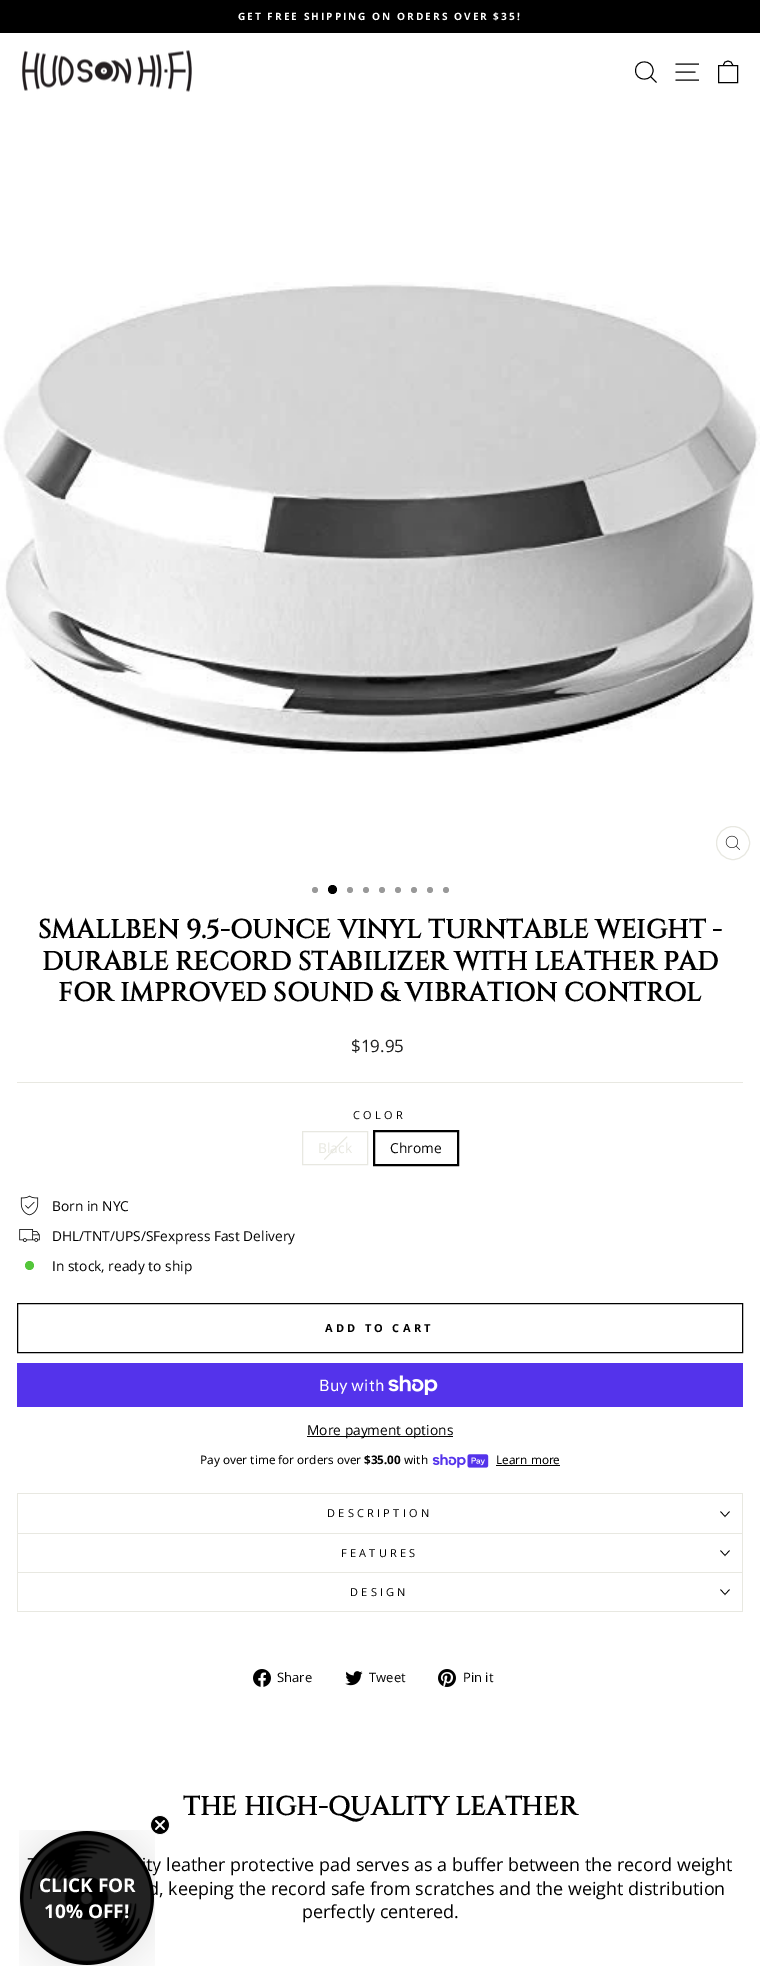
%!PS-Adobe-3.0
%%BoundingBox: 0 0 760 1985
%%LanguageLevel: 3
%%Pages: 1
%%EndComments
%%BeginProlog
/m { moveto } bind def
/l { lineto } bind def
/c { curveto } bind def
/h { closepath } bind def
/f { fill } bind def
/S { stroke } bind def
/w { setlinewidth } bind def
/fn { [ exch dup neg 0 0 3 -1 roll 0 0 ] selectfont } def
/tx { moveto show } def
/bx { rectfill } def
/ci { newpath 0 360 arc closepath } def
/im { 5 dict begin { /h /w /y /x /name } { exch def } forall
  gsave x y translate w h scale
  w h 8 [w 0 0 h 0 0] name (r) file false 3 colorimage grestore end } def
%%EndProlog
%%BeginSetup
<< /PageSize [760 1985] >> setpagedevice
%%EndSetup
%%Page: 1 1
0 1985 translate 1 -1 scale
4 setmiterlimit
1 setgray
0 0 760 1985 bx
0 setgray
0 0 760 33 bx
/OpenSans-Bold 10.1 fn
1 setgray
238 20 m 2 0 (GET FREE SHIPPING ON ORDERS OVER $35!) ashow
(image0.raw) 22 50 170 42 im
0 setgray
0.9 w
653 70.5 m 653 82 635.5 82 635.5 70.5 c 635.5 59 653 59 653 70.5 c h 656.5 82.5 m 650.5 76.5 l S
675.5 64 m 699 64 l 675.5 72 m 695.5 72 l 675.5 80 m 699 80 l 718.5 65.5 m 737.5 65.5 l 737.5 82.5 l 718.5 82.5 l h 723.5 65.5 m 723.5 59.5 732.5 59.5 732.5 65.5 c S
(image1.raw) 0 282 760 472 im
0.91 0.91 0.882 setrgbcolor
1 w
733 843 16.5 ci S
(image2.raw) 725 835 15 15 im
0.6 setgray
315 890 3 ci f
0 setgray
332.5 889.5 4.5 ci f
0.6 setgray
350 890 3 ci f
366 890 3 ci f
382 890 3 ci f
398 890 3 ci f
414 890 3 ci f
430 890 3 ci f
446 890 3 ci f
/Cinzel-Bold 26.25 fn
0 setgray
(SMALLBEN 9.5-OUNCE VINYL TURNTABLE WEIGHT -) 38 938 tx
(DURABLE RECORD STABILIZER WITH LEATHER PAD) 42 970 tx
(FOR IMPROVED SOUND & VIBRATION CONTROL) 58 1001 tx
/OpenSans-Regular 17 fn
0.11 0.114 0.114 setrgbcolor
($19.95) 351 1052 tx
0.91 0.91 0.882 setrgbcolor
17 1082 726 1 bx
/OpenSans-Regular 11 fn
0 setgray
353 1119 m 3.25 0 (COLOR) ashow
0.91 0.91 0.882 setrgbcolor
302.5 1131.5 65 33 rectstroke
346.5 1136.5 m 347.5 1137 l 324.5 1160 l 324 1159 l h f
/OpenSans-Regular 13.75 fn
(Black) 318 1153 tx
0 setgray
2 w
374 1131 84 34 rectstroke
(Chrome) 390 1153 tx
(image3.raw) 20 1195 19 21 im
(Born in NYC) 52 1211 tx
(image4.raw) 19 1229 21 13 im
(DHL/TNT/UPS/SFexpress Fast Delivery) 52 1241 tx
0.329 0.776 0.227 setrgbcolor
29.5 1265.5 4.5 ci f
0 setgray
(In stock, ready to ship) 52 1271 tx
1 w
17.5 1303.5 725 49 rectstroke
/OpenSans-Bold 11 fn
325 1332 m 3.25 0 (ADD TO CART) ashow
0.329 0.2 0.922 setrgbcolor
17 1363 726 44 bx
/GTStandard-Regular 16 fn
1 setgray
(Buy with) 319 1391 tx
(image5.raw) 388 1375 50 20 im
0 setgray
307 1436 146 1 bx
/OpenSans-Regular 13.75 fn
(More payment options) 307 1435 tx
/NotoSans-Regular 11.75 fn
(Pay over time for orders over) 200 1464 tx
/NotoSans-Bold 11.75 fn
($35.00) 364 1464 tx
/NotoSans-Regular 11.75 fn
(with) 404 1464 tx
(image6.raw) 432 1454 57 14 im
(Learn more) 496 1464 tx
496 1465 64 1 bx
0.91 0.91 0.882 setrgbcolor
17 1533 726 1 bx
17 1493 726 1 bx
742 1493 1 40 bx
17 1493 1 40 bx
/OpenSans-Regular 11 fn
0 setgray
327 1517 m 3.25 0 (DESCRIPTION) ashow
0.7 w
720.5 1511.5 m 725 1516.5 l 729.5 1511.5 l S
0.91 0.91 0.882 setrgbcolor
17 1572 726 1 bx
742 1534 1 38 bx
17 1534 1 38 bx
0 setgray
341 1557 m 3.25 0 (FEATURES) ashow
720.5 1550.5 m 725 1555.5 l 729.5 1550.5 l S
0.91 0.91 0.882 setrgbcolor
17 1611 726 1 bx
742 1573 1 38 bx
17 1573 1 38 bx
0 setgray
350 1596 m 3.25 0 (DESIGN) ashow
720.5 1589.5 m 725 1594.5 l 729.5 1589.5 l S
(image7.raw) 253 1669 18 18 im
/OpenSans-Regular 13 fn
(Share) 277 1682 tx
(image8.raw) 345 1671 18 15 im
(Tweet) 369 1682 tx
(image9.raw) 438 1669 18 18 im
(Pin it) 463 1682 tx
/Cinzel-Bold 26.25 fn
(THE HIGH-QUALITY LEATHER) 183 1815 tx
/OpenSans-Regular 17.95 fn
(ty leather protective pad serves as a buffer between the record weight) 146 1871 tx
(d, keeping the record safe from scratches and the weight distribution) 148 1895 tx
(perfectly centered.) 302 1918 tx
87 1898 67 ci f
(image11.raw) 19 1830 136 136 im
(image10.raw) 150 1815 20 20 im
/OpenSans-Bold 19 fn
1 setgray
(CLICK FOR) 39 1892 tx
(10% OFF!) 44 1918 tx
showpage
%%EOF
